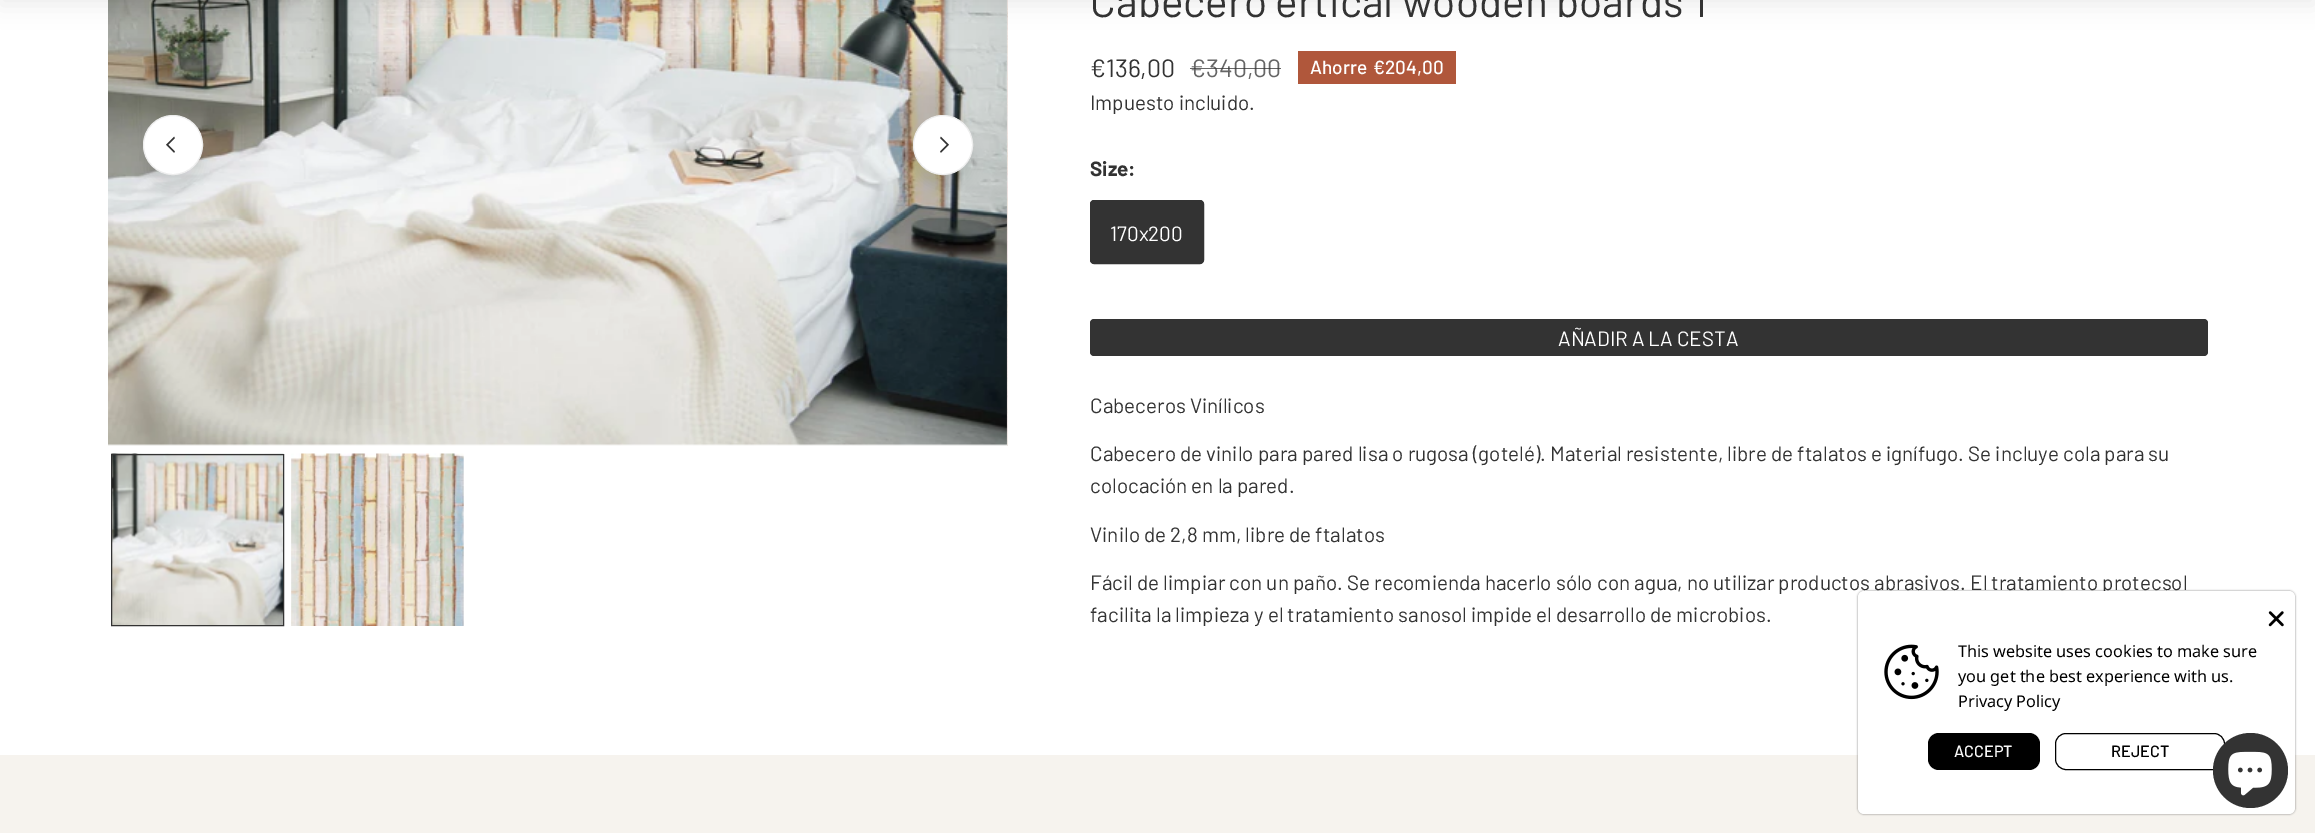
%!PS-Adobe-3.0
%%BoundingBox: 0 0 2315 833
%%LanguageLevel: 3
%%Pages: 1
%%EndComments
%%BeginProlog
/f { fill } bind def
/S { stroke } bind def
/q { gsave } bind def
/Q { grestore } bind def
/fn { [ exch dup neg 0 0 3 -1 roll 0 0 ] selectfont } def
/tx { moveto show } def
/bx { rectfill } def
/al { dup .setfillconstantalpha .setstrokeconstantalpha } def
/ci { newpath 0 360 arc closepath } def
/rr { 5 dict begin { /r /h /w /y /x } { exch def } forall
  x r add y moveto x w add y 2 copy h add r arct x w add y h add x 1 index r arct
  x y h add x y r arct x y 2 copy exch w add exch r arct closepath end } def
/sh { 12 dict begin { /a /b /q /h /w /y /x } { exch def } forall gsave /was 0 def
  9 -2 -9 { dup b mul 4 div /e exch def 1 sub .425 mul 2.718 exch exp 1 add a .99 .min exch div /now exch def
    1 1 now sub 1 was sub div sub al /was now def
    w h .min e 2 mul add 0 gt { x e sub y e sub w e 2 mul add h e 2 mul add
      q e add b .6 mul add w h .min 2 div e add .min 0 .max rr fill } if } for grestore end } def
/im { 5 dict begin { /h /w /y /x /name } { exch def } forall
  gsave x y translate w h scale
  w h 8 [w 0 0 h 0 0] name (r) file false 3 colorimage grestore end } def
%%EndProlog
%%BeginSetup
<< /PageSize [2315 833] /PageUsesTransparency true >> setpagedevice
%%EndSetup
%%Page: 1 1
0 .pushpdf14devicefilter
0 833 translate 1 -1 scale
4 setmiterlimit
1 setgray
0 0 2315 833 bx
(image0.raw) 108 0 899 446 im
(image1.raw) 1007 0 1 446 im
0 setgray
0 -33 2315 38 0 11 0.07 sh
0.2 setgray
143 129 60 60 30 5.5 0.09 sh
1 setgray
173 145 29.5 ci q f Q
0.929 setgray
S
(image2.raw) 166 136 9 17 im
0.2 setgray
913 129 60 60 30 5.5 0.09 sh
1 setgray
943 145 29.5 ci q f Q
0.929 setgray
S
(image3.raw) 940 136 9 17 im
(image4.raw) 111 453 173 172 im
0.2 setgray
111.5 454.5 172 171 rectstroke
(image5.raw) 291 453 173 173 im
/Barlow-Regular 42.5 fn
(Cabecero ertical wooden boards 1) 1090 17 tx
/Barlow-Regular 25 fn
(€136,00) 1090 77 tx
0.4 setgray
(€340,00) 1190 77 tx
0.75 al
0.2 setgray
1190 68 91 1 bx
1 al
0.69 0.341 0.231 setrgbcolor
1298 51 158 33 bx
/Barlow-Medium 19 fn
1 setgray
(Ahorre) 1310 74 tx
(€204,00) 1373 74 tx
/Barlow-Regular 20.62 fn
0.2 setgray
(Impuesto incluido.) 1090 110 tx
/Barlow-Bold 20.62 fn
(Size:) 1090 176 tx
1090.5 200.5 113 63 3.5 rr q f Q
S
/Barlow-Regular 20.62 fn
1 setgray
(170x200) 1110 241 tx
0.2 setgray
1090 319 1118 37 4 rr f
1 setgray
(AÑADIR A LA CESTA) 1558 346 tx
0.2 setgray
(Cabeceros Vinílicos) 1090 413 tx
(Cabecero de vinilo para pared lisa o rugosa \(gotelé\). Material resistente, libre de ftalatos e ignífugo. Se incluye cola para su) 1090 461 tx
(colocación en la pared.) 1090 493 tx
(Vinilo de 2,8 mm, libre de ftalatos) 1090 542 tx
(Fácil de limpiar con un paño. Se recomienda hacerlo sólo con agua, no utilizar productos abrasivos. El tratamiento protecsol) 1090 590 tx
(facilita la limpieza y el tratamiento sanosol impide el desarrollo de microbios.) 1090 622 tx
0.965 0.953 0.933 setrgbcolor
0 755 2315 78 bx
0 setgray
1858 591 437 223 6 1 0.5 sh
1 setgray
1858 591 437 223 6 rr f
(image6.raw) 2268 611 16 16 im
(image7.raw) 1884 644 55 56 im
/NotoSans-Regular 16.25 fn
0 setgray
(This website uses cookies to make sure) 1958 657 tx
q
1958 638 306 76 rectclip
(you get the best experience with us.) 1958 682 tx
Q
(Privacy Policy) 1958 707 tx
1928 733 112 37 11 rr f
/Barlow-Medium 16.25 fn
0.973 setgray
(ACCEPT) 1954 757 tx
0 setgray
2055.5 733.5 169 36 10.5 rr S
(REJECT) 2111 757 tx
0.2 setgray
2250.5 770.5 37.5 ci f
(image8.raw) 2228 751 44 45 im
.poppdf14devicefilter showpage
%%EOF
